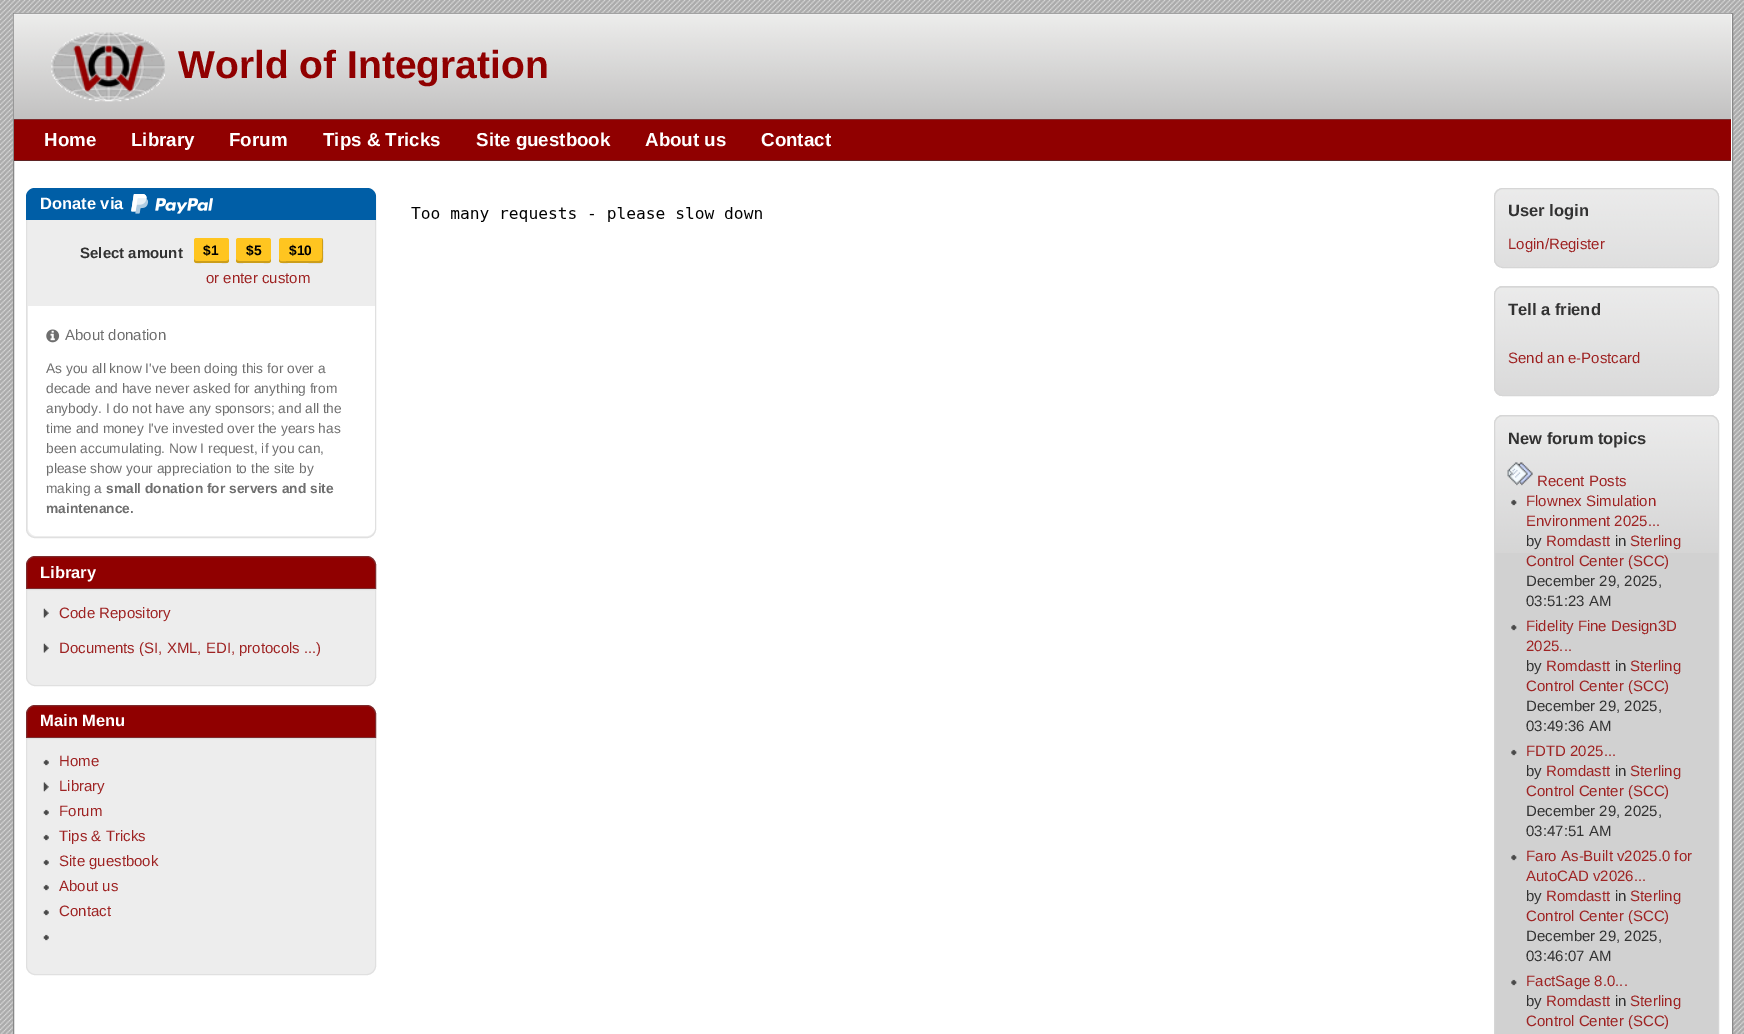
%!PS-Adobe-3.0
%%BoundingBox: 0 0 1744 1034
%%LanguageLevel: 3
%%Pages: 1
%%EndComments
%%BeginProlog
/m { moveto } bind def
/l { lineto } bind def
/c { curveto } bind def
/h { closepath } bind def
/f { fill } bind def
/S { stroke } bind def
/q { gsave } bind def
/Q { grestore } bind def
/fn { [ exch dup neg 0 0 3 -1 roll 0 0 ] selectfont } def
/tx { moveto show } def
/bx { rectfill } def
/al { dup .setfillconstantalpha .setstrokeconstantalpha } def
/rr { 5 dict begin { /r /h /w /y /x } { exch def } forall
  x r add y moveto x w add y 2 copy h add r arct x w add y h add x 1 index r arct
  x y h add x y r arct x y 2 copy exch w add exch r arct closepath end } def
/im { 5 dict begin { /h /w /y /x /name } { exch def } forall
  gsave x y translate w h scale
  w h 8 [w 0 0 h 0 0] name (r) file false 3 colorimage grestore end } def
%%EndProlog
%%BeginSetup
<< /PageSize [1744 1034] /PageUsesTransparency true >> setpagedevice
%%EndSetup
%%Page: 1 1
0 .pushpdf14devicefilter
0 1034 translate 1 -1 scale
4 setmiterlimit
1 setgray
0 0 1744 1034 bx
(image0.raw) 0 0 1744 1034 im
13.5 13.5 m 1732.5 13.5 l 1732.5 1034.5 l 13.5 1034.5 l h q f Q
0.533 setgray
S
(image1.raw) 13 13 1719 106 im
(image2.raw) 51 32 114 70 im
/LiberationSans-Bold 39 fn
0.565 0 0 setrgbcolor
(World of Integration) 178 78 tx
14 120 1717 40 bx
0.486 0.169 0.176 setrgbcolor
14 119 1717 1 bx
0.373 0.137 0.141 setrgbcolor
14 160 1717 1 bx
/LiberationSans-Bold 18.75 fn
1 setgray
(Home) 44 146 tx
(Library) 131 146 tx
(Forum) 229 146 tx
(Tips & Tricks) 323 146 tx
(Site guestbook) 476 146 tx
(About us) 645 146 tx
(Contact) 761 146 tx
0.929 setgray
26.5 188.5 349 349 8.5 rr q f Q
0.878 setgray
S
0 0.369 0.651 setrgbcolor
35 188 m 367 188 l 372 188 376 192 376 197 c 376 220 l 26 220 l 26 197 l 26 192 30 188 35 188 c h f
/LiberationSans-Bold 16.5 fn
1 setgray
(Donate via) 40 209 tx
(image3.raw) 131 194 82 20 im
/LiberationSans-Bold 15 fn
0.196 setgray
(Select amount) 80 258 tx
1 0.773 0.125 setrgbcolor
194 238 35 25 2.5 rr f
0.2 al
0 setgray
194 259 m 194 264 196.5 263 201.5 263 c 221.5 263 l 226.5 263 229 264 229 259 c 229 260 228 261 226 261 c 196 261 l 195 261 194 260 194 259 c h f
/LiberationSans-Bold 13.75 fn
1 al
($1) 203 255 tx
1 0.773 0.125 setrgbcolor
236 238 35 25 2.5 rr f
0.2 al
0 setgray
236 259 m 236 264 238.5 263 243.5 263 c 263.5 263 l 268.5 263 271 264 271 259 c 271 260 270 261 269 261 c 239 261 l 237 261 236 260 236 259 c h f
1 al
($5) 246 255 tx
1 0.773 0.125 setrgbcolor
279 238 44 25 2.5 rr f
0.2 al
0 setgray
279 259 m 279 264 283 263 288 263 c 308 263 l 325 263 323 266 323 250 c 323 248 324 240 322 238 c 322 252 l 322 262 323 261 314 261 c 288 261 l 287 261 279 263 279 259 c h f
1 al
($10) 289 255 tx
/LiberationSans-Regular 15 fn
0.62 0.137 0.137 setrgbcolor
(or enter custom) 206 283 tx
1 setgray
28 306 m 375 306 l 375 527 l 375 532 371 536 366 536 c 37 536 l 32 536 28 532 28 527 c h f
(image4.raw) 46 329 14 14 im
0.431 setgray
(About donation) 65 340 tx
/LiberationSans-Regular 13.75 fn
(As you all know I've been doing this for over a) 46 373 tx
(decade and have never asked for anything from) 46 393 tx
(anybody. I do not have any sponsors; and all the) 46 413 tx
(time and money I've invested over the years has) 46 433 tx
(been accumulating. Now I request, if you can,) 46 453 tx
(please show your appreciation to the site by) 46 473 tx
(making a) 46 493 tx
/LiberationSans-Bold 13.75 fn
(small donation for servers and site) 106 493 tx
(maintenance.) 46 513 tx
0.565 0 0 setrgbcolor
35 556.5 m 367 556.5 l 371.5 556.5 375.5 560.5 375.5 565 c 375.5 588.5 l 26.5 588.5 l 26.5 565 l 26.5 560.5 30.5 556.5 35 556.5 c h q f Q
0.486 0.169 0.176 setrgbcolor
S
/LiberationSans-Bold 16.5 fn
1 setgray
(Library) 40 578 tx
0.929 setgray
26.5 589.5 m 375.5 589.5 l 375.5 677 l 375.5 681.5 371.5 685.5 367 685.5 c 35 685.5 l 30.5 685.5 26.5 681.5 26.5 677 c h q f Q
0.878 setgray
S
(image5.raw) 43 608 6 10 im
/LiberationSans-Regular 15 fn
0.62 0.137 0.137 setrgbcolor
(Code Repository) 59 618 tx
(image5.raw) 43 643 6 10 im
(Documents \(SI, XML, EDI, protocols ...\)) 59 653 tx
0.565 0 0 setrgbcolor
35 705.5 m 367 705.5 l 371.5 705.5 375.5 709.5 375.5 714 c 375.5 737.5 l 26.5 737.5 l 26.5 714 l 26.5 709.5 30.5 705.5 35 705.5 c h q f Q
0.486 0.169 0.176 setrgbcolor
S
/LiberationSans-Bold 16.5 fn
1 setgray
(Main Menu) 40 726 tx
0.929 setgray
26.5 738.5 m 375.5 738.5 l 375.5 966 l 375.5 970.5 371.5 974.5 367 974.5 c 35 974.5 l 30.5 974.5 26.5 970.5 26.5 966 c h q f Q
0.878 setgray
S
(image6.raw) 43 759 6 7 im
/LiberationSans-Regular 15 fn
0.62 0.137 0.137 setrgbcolor
(Home) 59 766 tx
(image7.raw) 43 782 6 10 im
(Library) 59 791 tx
(image6.raw) 43 809 6 7 im
(Forum) 59 816 tx
(image6.raw) 43 834 6 7 im
(Tips & Tricks) 59 841 tx
(image6.raw) 43 859 6 7 im
(Site guestbook) 59 866 tx
(image6.raw) 43 884 6 7 im
(About us) 59 891 tx
(image6.raw) 43 909 6 7 im
(Contact) 59 916 tx
(image6.raw) 43 934 6 7 im
(image8.raw) 411 207 351 15 im
(image9.raw) 1494 188 225 79 im
0.839 setgray
1494.5 188.5 224 79 8.5 rr S
/LiberationSans-Bold 16.5 fn
0.196 setgray
(User login) 1508 216 tx
/LiberationSans-Regular 15 fn
0.62 0.137 0.137 setrgbcolor
(Login/Register) 1508 249 tx
0.82 setgray
1494 286 225 110 9 rr f
(image10.raw) 1494 287 225 109 im
0.839 setgray
1494.5 286.5 224 109 8.5 rr S
/LiberationSans-Bold 16.5 fn
0.196 setgray
(Tell a friend) 1508 315 tx
/LiberationSans-Regular 15 fn
0.62 0.137 0.137 setrgbcolor
(Send an e-Postcard) 1508 363 tx
0.82 setgray
1494 415 225 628 9 rr f
(image11.raw) 1494 416 225 137 im
0.839 setgray
1494.5 415.5 224 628 8.5 rr S
/LiberationSans-Bold 16.5 fn
0.196 setgray
(New forum topics) 1508 444 tx
(image12.raw) 1507 462 26 24 im
/LiberationSans-Regular 15 fn
0.62 0.137 0.137 setrgbcolor
(Recent Posts) 1537 486 tx
(image13.raw) 1511 499 6 7 im
(Flownex Simulation) 1526 506 tx
(Environment 2025...) 1526 526 tx
0.196 setgray
(by) 1526 546 tx
0.62 0.137 0.137 setrgbcolor
(Romdastt) 1546 546 tx
0.196 setgray
(in) 1615 546 tx
0.62 0.137 0.137 setrgbcolor
(Sterling) 1630 546 tx
(Control Center \(SCC\)) 1526 566 tx
0.196 setgray
(December 29, 2025,) 1526 586 tx
(03:51:23 AM) 1526 606 tx
(image14.raw) 1511 624 6 7 im
0.62 0.137 0.137 setrgbcolor
(Fidelity Fine Design3D) 1526 631 tx
(2025...) 1526 651 tx
0.196 setgray
(by) 1526 671 tx
0.62 0.137 0.137 setrgbcolor
(Romdastt) 1546 671 tx
0.196 setgray
(in) 1615 671 tx
0.62 0.137 0.137 setrgbcolor
(Sterling) 1630 671 tx
(Control Center \(SCC\)) 1526 691 tx
0.196 setgray
(December 29, 2025,) 1526 711 tx
(03:49:36 AM) 1526 731 tx
(image14.raw) 1511 749 6 7 im
0.62 0.137 0.137 setrgbcolor
(FDTD 2025...) 1526 756 tx
0.196 setgray
(by) 1526 776 tx
0.62 0.137 0.137 setrgbcolor
(Romdastt) 1546 776 tx
0.196 setgray
(in) 1615 776 tx
0.62 0.137 0.137 setrgbcolor
(Sterling) 1630 776 tx
(Control Center \(SCC\)) 1526 796 tx
0.196 setgray
(December 29, 2025,) 1526 816 tx
(03:47:51 AM) 1526 836 tx
(image14.raw) 1511 854 6 7 im
0.62 0.137 0.137 setrgbcolor
(Faro As-Built v2025.0 for) 1526 861 tx
(AutoCAD v2026...) 1526 881 tx
0.196 setgray
(by) 1526 901 tx
0.62 0.137 0.137 setrgbcolor
(Romdastt) 1546 901 tx
0.196 setgray
(in) 1615 901 tx
0.62 0.137 0.137 setrgbcolor
(Sterling) 1630 901 tx
(Control Center \(SCC\)) 1526 921 tx
0.196 setgray
(December 29, 2025,) 1526 941 tx
(03:46:07 AM) 1526 961 tx
(image14.raw) 1511 979 6 7 im
0.62 0.137 0.137 setrgbcolor
(FactSage 8.0...) 1526 986 tx
0.196 setgray
(by) 1526 1006 tx
0.62 0.137 0.137 setrgbcolor
(Romdastt) 1546 1006 tx
0.196 setgray
(in) 1615 1006 tx
0.62 0.137 0.137 setrgbcolor
(Sterling) 1630 1006 tx
(Control Center \(SCC\)) 1526 1026 tx
.poppdf14devicefilter showpage
%%EOF
